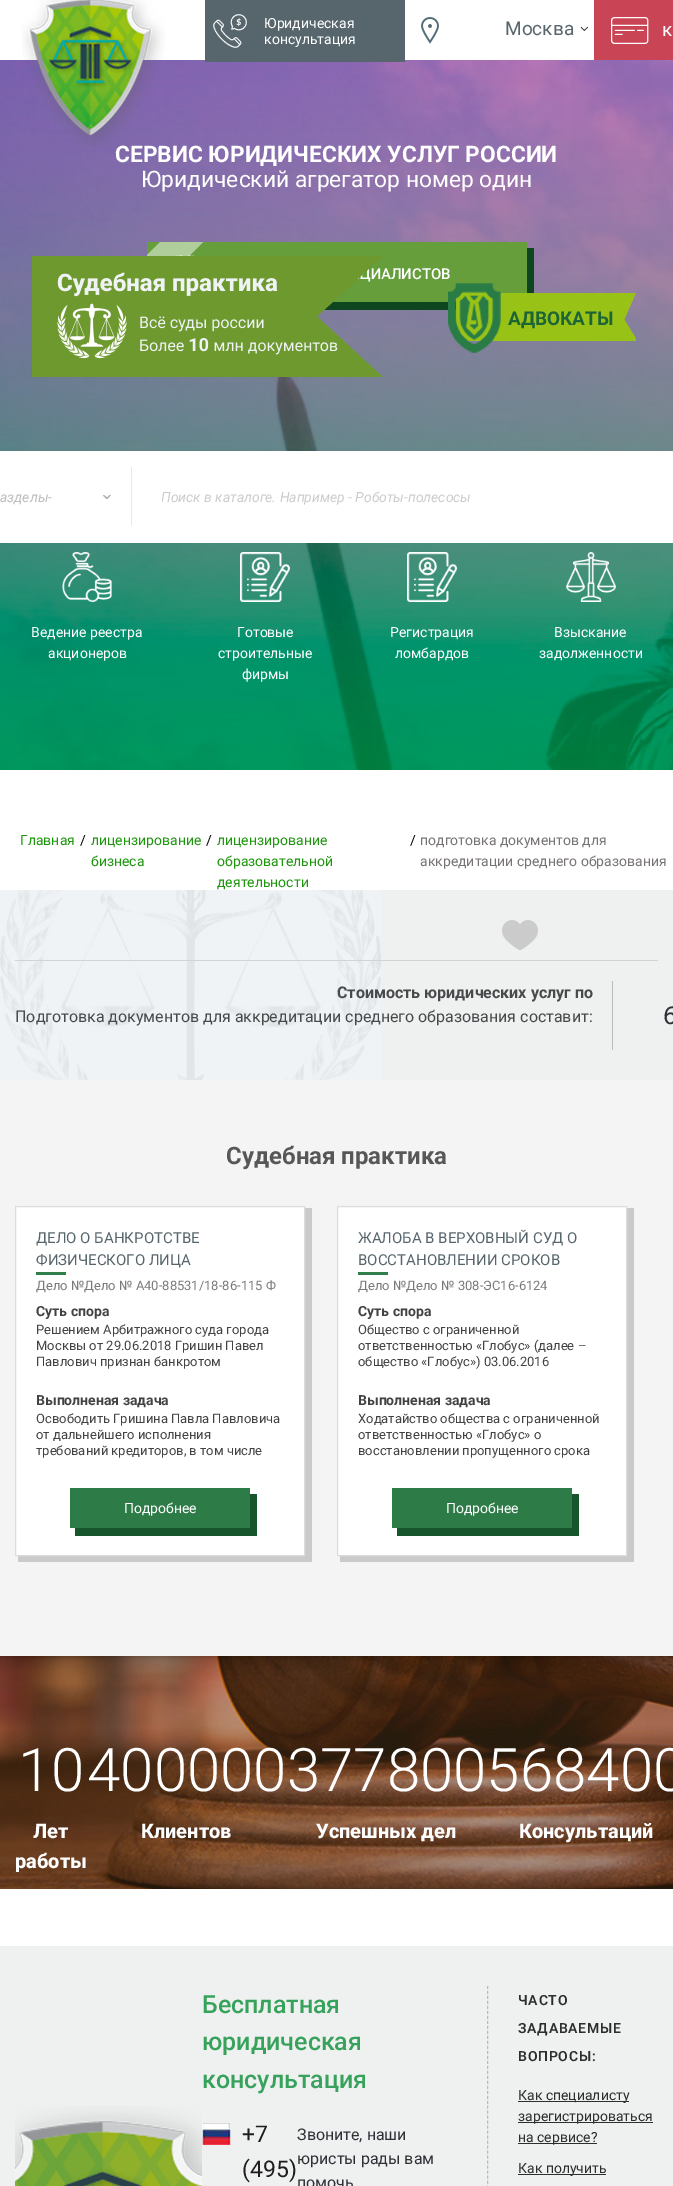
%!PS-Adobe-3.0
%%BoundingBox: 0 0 673 2186
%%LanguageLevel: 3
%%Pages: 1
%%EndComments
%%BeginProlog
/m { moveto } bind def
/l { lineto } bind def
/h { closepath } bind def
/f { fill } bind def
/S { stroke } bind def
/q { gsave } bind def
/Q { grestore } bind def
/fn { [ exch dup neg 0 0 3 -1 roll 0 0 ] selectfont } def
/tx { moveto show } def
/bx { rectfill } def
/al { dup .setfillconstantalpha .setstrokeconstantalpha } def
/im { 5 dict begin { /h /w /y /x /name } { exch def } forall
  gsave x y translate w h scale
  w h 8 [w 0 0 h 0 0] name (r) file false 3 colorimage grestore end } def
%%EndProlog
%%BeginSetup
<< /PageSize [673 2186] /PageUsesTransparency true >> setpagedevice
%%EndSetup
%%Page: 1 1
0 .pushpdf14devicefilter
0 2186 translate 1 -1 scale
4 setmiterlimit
1 setgray
0 0 673 2186 bx
(image5.raw) 0 60 673 710 im
/Roboto-Bold 22.75 fn
(СЕРВИС ЮРИДИЧЕСКИХ УСЛУГ РОССИИ) 115 162 tx
(image0.raw) 22 0 143 147 im
0.341 0.4 0.424 setrgbcolor
205 0 200 62 bx
(image1.raw) 213 14 34 34 im
/Roboto-Regular 14 fn
1 setgray
(Юридическая) 264 28 tx
(консультация) 264 44 tx
(image2.raw) 421 17 18 27 im
(image3.raw) 580 26 9 5 im
/Roboto-Regular 19 fn
0.341 0.4 0.424 setrgbcolor
(Москва) 505 35 tx
0.788 0.267 0.329 setrgbcolor
594 0 79 60 bx
(image4.raw) 611 17 38 27 im
1 setgray
(к) 662 36 tx
/Roboto-Regular 22.75 fn
(Юридический агрегатор номер один) 141 187 tx
0.055 0.275 0.125 setrgbcolor
152 302 m 152 310 l 534 310 l 534 248 l 527 248 l 527 302 l h f
0.396 0.62 0.231 setrgbcolor
147 242 380 60 bx
(image7.raw) 176 255 18 1 im
q
147 242 380 60 rectclip
0.49 al
1 setgray
277 125 m 298 147 l 86 359 l 65 337 l h f
Q
/Roboto-Medium 15 fn
1 setgray
(ЦИАЛИСТОВ) 359 279 tx
(image6.raw) 32 256 351 121 im
(image8.raw) 62 552 50 50 im
/Roboto-Regular 14 fn
(Ведение реестра) 31 637 tx
(акционеров) 48 658 tx
(image9.raw) 240 552 50 50 im
(Готовые) 237 637 tx
(строительные) 218 658 tx
(фирмы) 242 679 tx
(image10.raw) 407 552 50 50 im
(Регистрация) 390 637 tx
(ломбардов) 395 658 tx
(image11.raw) 566 552 50 50 im
(Взыскание) 554 637 tx
(задолженности) 539 658 tx
(image12.raw) 448 283 188 70 im
/Roboto-Bold 19 fn
0.118 0.396 0.208 setrgbcolor
(АДВОКАТЫ) 508 325 tx
1 setgray
0 451 673 92 bx
0.914 setgray
131 467 1 59 bx
/Roboto-Italic 14 fn
0.745 setgray
(азделы-) 0 502 tx
(image13.raw) 102 494 9 5 im
q
162 489 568 16 rectclip
0.8 setgray
(Поиск в каталоге. Например - Роботы-полесосы) 161 502 tx
Q
/Roboto-Regular 14 fn
0.114 0.584 0.051 setrgbcolor
(Главная) 20 845 tx
0 setgray
(/) 80 845 tx
0.114 0.584 0.051 setrgbcolor
(лицензирование) 91 845 tx
(бизнеса) 91 866 tx
0 setgray
(/) 206 845 tx
0.114 0.584 0.051 setrgbcolor
(лицензирование) 217 845 tx
(образовательной) 217 866 tx
(деятельности) 217 887 tx
0 setgray
(/) 410 845 tx
0.467 0.451 0.451 setrgbcolor
(подготовка документов для) 420 845 tx
(аккредитации среднего образования) 420 866 tx
0.937 0.941 0.941 setrgbcolor
381 890 292 190 bx
(image14.raw) 0 890 381 190 im
(image15.raw) 502 920 36 30 im
0.824 0.827 0.827 setrgbcolor
15 960 643 1 bx
0.733 setgray
612 981 1 69 bx
/Roboto-Bold 16 fn
0.278 0.286 0.294 setrgbcolor
(Стоимость юридических услуг по) 337 998 tx
/Roboto-Regular 16 fn
(Подготовка документов для аккредитации среднего образования составит:) 15 1022 tx
/Roboto-Regular 25 fn
0.188 0.192 0.212 setrgbcolor
(6) 663 1024 tx
0.957 setgray
0 1080 673 576 bx
/Roboto-Bold 24 fn
0.341 setgray
(Судебная практика) 226 1164 tx
0.792 setgray
18 1556 m 18 1562 l 312 1562 l 312 1208 l 305 1208 l 305 1556 l h f
1 setgray
15.5 1206.5 m 304.5 1206.5 l 304.5 1555.5 l 15.5 1555.5 l h q f Q
0.863 setgray
S
/Roboto-Regular 15 fn
0.341 0.4 0.424 setrgbcolor
(ДЕЛО О БАНКРОТСТВЕ) 36 1243 tx
(ФИЗИЧЕСКОГО ЛИЦА) 36 1265 tx
0.192 0.494 0.294 setrgbcolor
36 1272 30 3 bx
/Roboto-Regular 13 fn
0.475 setgray
(Дело №Дело № А40-88531/18-86-115 Ф) 36 1290 tx
/Roboto-Bold 14 fn
0.259 setgray
(Суть спора) 36 1316 tx
/Roboto-Regular 13 fn
(Решением Арбитражного суда города) 36 1334 tx
(Москвы от 29.06.2018 Гришин Павел) 36 1350 tx
(Павлович признан банкротом) 36 1366 tx
/Roboto-Bold 14 fn
(Выполненая задача) 36 1405 tx
/Roboto-Regular 13 fn
(Освободить Гришина Павла Павловича) 36 1423 tx
(от дальнейшего исполнения) 36 1439 tx
(требований кредиторов, в том числе) 36 1455 tx
0.09 0.337 0.173 setrgbcolor
75 1528 m 75 1536 l 257 1536 l 257 1494 l 250 1494 l 250 1528 l h f
0.176 0.482 0.278 setrgbcolor
70 1488 180 40 bx
/Roboto-Regular 14 fn
1 setgray
(Подробнее) 124 1513 tx
0.792 setgray
340 1556 m 340 1562 l 634 1562 l 634 1208 l 627 1208 l 627 1556 l h f
1 setgray
337.5 1206.5 m 626.5 1206.5 l 626.5 1555.5 l 337.5 1555.5 l h q f Q
0.863 setgray
S
/Roboto-Regular 15 fn
0.341 0.4 0.424 setrgbcolor
(ЖАЛОБА В ВЕРХОВНЫЙ СУД О) 358 1243 tx
(ВОССТАНОВЛЕНИИ СРОКОВ) 358 1265 tx
0.192 0.494 0.294 setrgbcolor
358 1272 30 3 bx
/Roboto-Regular 13 fn
0.475 setgray
(Дело №Дело № 308-ЭС16-6124) 358 1290 tx
/Roboto-Bold 14 fn
0.259 setgray
(Суть спора) 358 1316 tx
/Roboto-Regular 13 fn
(Общество с ограниченной) 358 1334 tx
(ответственностью «Глобус» \(далее –) 358 1350 tx
(общество «Глобус»\) 03.06.2016) 358 1366 tx
/Roboto-Bold 14 fn
(Выполненая задача) 358 1405 tx
/Roboto-Regular 13 fn
(Ходатайство общества с ограниченной) 358 1423 tx
(ответственностью «Глобус» о) 358 1439 tx
(восстановлении пропущенного срока) 358 1455 tx
0.09 0.337 0.173 setrgbcolor
397 1528 m 397 1536 l 579 1536 l 579 1494 l 572 1494 l 572 1528 l h f
0.176 0.482 0.278 setrgbcolor
392 1488 180 40 bx
/Roboto-Regular 14 fn
1 setgray
(Подробнее) 446 1513 tx
(image16.raw) 0 1656 673 233 im
/Roboto-Light 60 fn
(10) 18 1791 tx
/Roboto-ExtraBold 20 fn
(Лет) 33 1838 tx
(работы) 15 1868 tx
/Roboto-Light 60 fn
(400000377800568400) 87 1791 tx
/Roboto-ExtraBold 20 fn
(Клиентов) 141 1838 tx
(Успешных дел) 316 1838 tx
(Консультаций) 519 1838 tx
0.937 0.941 0.941 setrgbcolor
0 1946 673 240 bx
(image17.raw) 15 2106 187 80 im
/Roboto-Medium 25 fn
0.216 0.635 0.357 setrgbcolor
(Бесплатная) 202 2013 tx
(юридическая) 202 2050 tx
(консультация) 202 2088 tx
(image18.raw) 202 2123 29 22 im
/Roboto-Regular 23 fn
0.122 0.114 0.118 setrgbcolor
(+7) 242 2142 tx
(\(495\)) 242 2177 tx
/Roboto-Regular 16 fn
0.188 0.192 0.212 setrgbcolor
(Звоните, наши) 297 2140 tx
(юристы рады вам) 297 2164 tx
(помочь) 297 2188 tx
0.722 0.737 0.733 setrgbcolor
[3 1.99] 0 setdash
487.5 1986 m 487.5 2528 l S
/Roboto-SemiBold 14 fn
0.173 0.184 0.18 setrgbcolor
518 2005 m 0.75 0 (ЧАСТО) ashow
518 2033 m 0.75 0 (ЗАДАВАЕМЫЕ) ashow
518 2061 m 0.75 0 (ВОПРОСЫ:) ashow
518 2101 111 1 bx
/Roboto-Regular 14 fn
(Как специалисту) 518 2100 tx
518 2122 135 1 bx
(зарегистрироваться) 518 2121 tx
518 2143 79 1 bx
(на сервисе?) 518 2142 tx
518 2174 88 1 bx
(Как получить) 518 2173 tx
.poppdf14devicefilter showpage
%%EOF
